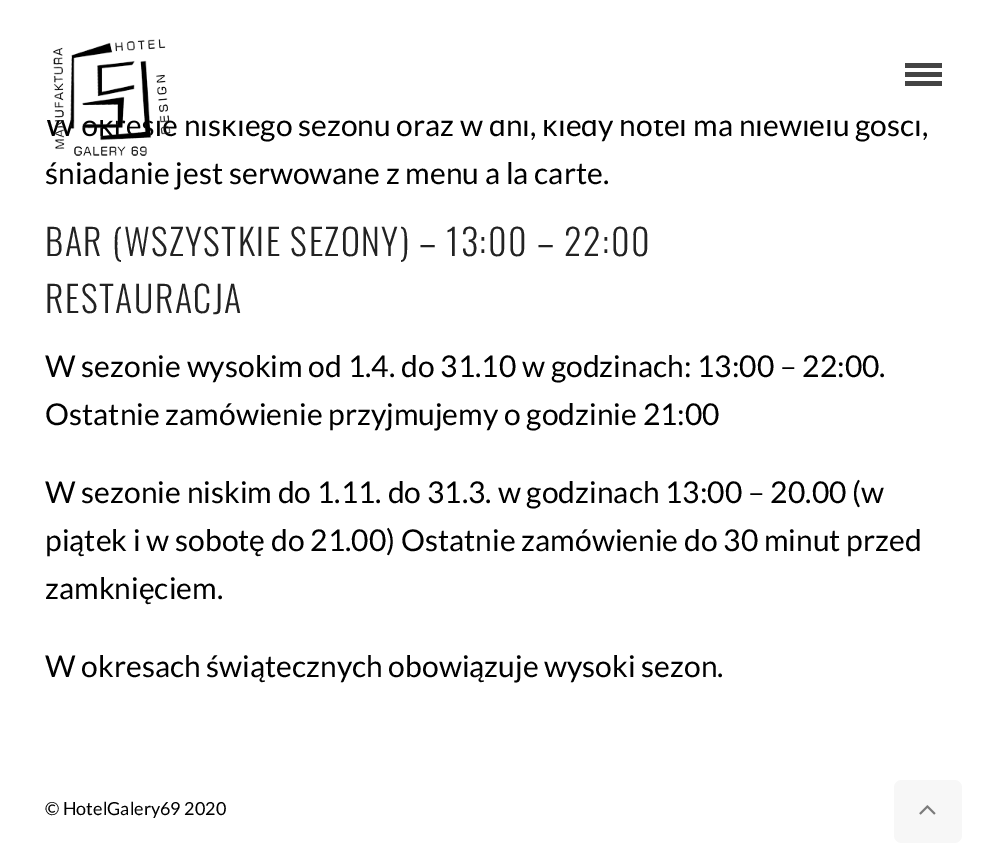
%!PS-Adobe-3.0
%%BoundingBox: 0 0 987 853
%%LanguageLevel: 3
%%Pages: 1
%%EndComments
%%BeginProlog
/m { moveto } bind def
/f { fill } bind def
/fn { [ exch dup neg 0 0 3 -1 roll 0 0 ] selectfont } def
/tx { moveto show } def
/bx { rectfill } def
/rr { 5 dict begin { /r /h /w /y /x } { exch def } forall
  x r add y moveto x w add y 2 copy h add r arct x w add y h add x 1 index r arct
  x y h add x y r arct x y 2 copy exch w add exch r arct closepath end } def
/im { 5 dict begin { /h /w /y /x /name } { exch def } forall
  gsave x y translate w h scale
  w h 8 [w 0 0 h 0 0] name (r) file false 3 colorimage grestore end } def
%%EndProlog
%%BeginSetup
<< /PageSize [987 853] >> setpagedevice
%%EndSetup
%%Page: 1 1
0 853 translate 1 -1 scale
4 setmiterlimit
1 setgray
0 0 987 853 bx
/Lato-Regular 30 fn
0 setgray
(W okresie niskiego sezonu oraz w dni, kiedy hotel ma niewielu gości,) 45 136 tx
1 setgray
45 113 875 7 bx
(image0.raw) 53 39 118 117 im
0.267 setgray
905 63 37 5 bx
905 72 37 5 bx
905 81 37 5 bx
0 setgray
(śniadanie jest serwowane z menu a la carte.) 45 184 tx
/Oswald-Light 36 fn
0.133 setgray
45 256 m 1.5 0 (BAR \(WSZYSTKIE SEZONY\) – 13:00 – 22:00) ashow
45 313 m 1.5 0 (RESTAURACJA) ashow
/Lato-Regular 30 fn
0 setgray
(W sezonie wysokim od 1.4. do 31.10 w godzinach: 13:00 – 22:00.) 45 377 tx
(Ostatnie zamówienie przyjmujemy o godzinie 21:00) 45 425 tx
(W sezonie niskim do 1.11. do 31.3. w godzinach 13:00 – 20.00 \(w) 45 503 tx
(piątek i w sobotę do 21.00\) Ostatnie zamówienie do 30 minut przed) 45 551 tx
(zamknięciem.) 45 599 tx
(W okresach świątecznych obowiązuje wysoki sezon.) 45 677 tx
/Lato-Regular 18 fn
(© HotelGalery69 2020) 45 815 tx
0.969 setgray
894 780 68 63 8 rr f
(image1.raw) 919 805 17 10 im
showpage
%%EOF
